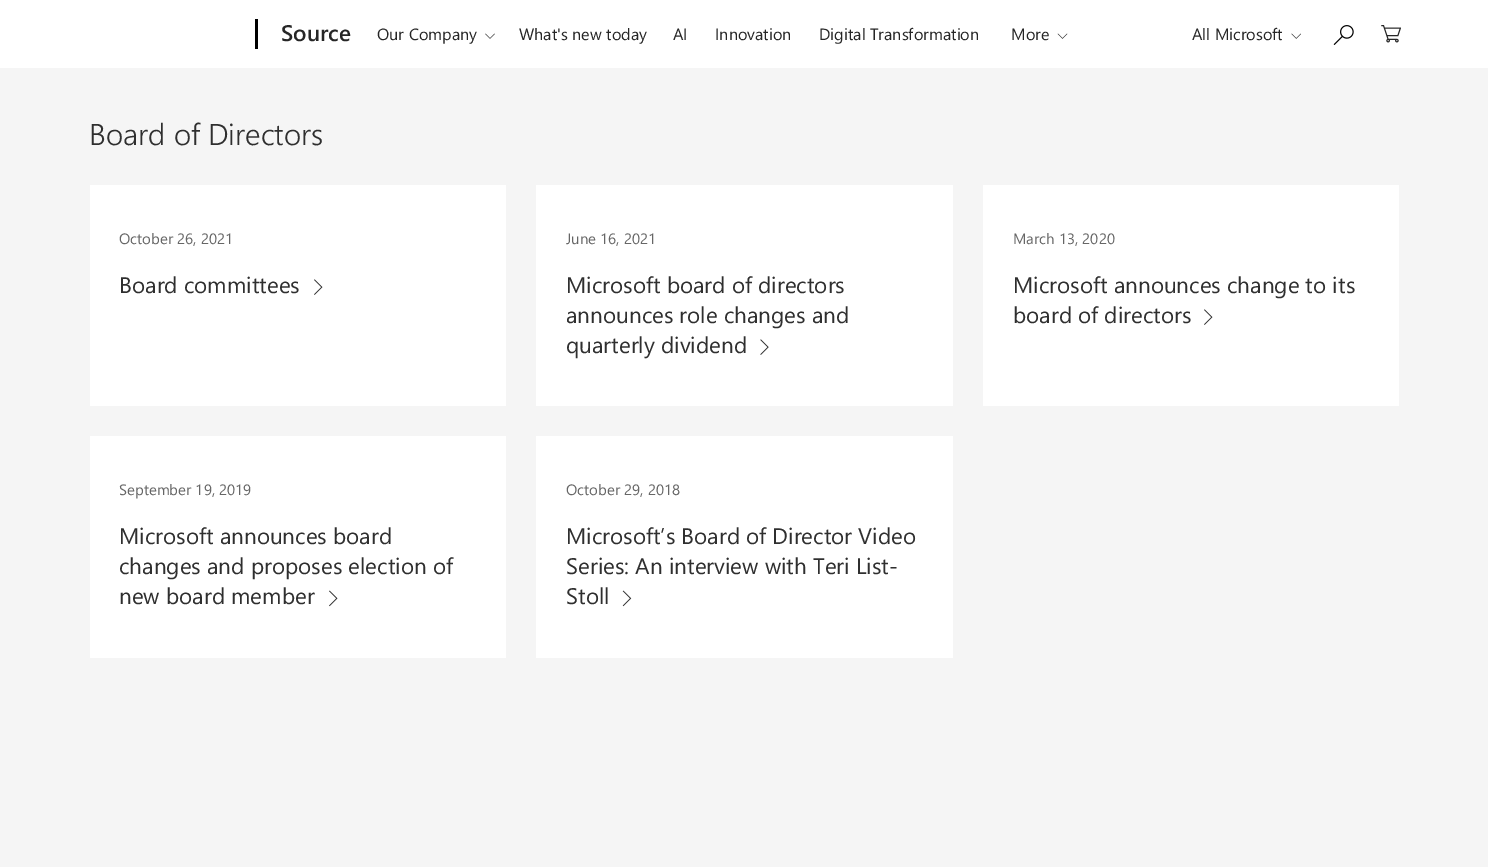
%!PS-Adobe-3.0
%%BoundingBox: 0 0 1488 867
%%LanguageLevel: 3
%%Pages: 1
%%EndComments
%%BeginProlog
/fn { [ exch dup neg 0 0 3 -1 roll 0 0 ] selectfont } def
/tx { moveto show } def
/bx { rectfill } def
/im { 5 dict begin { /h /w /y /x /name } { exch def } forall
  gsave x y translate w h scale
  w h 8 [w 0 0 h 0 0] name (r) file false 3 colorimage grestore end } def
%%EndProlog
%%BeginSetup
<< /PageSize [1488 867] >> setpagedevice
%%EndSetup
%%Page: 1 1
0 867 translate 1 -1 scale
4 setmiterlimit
0.961 setgray
0 0 1488 867 bx
1 setgray
0 0 1488 68 bx
0 setgray
255 19 3 30 bx
/SegoeUI-SemiBold 22.5 fn
0.149 setgray
(Source) 281 41 tx
/SegoeUI-Regular 16.25 fn
(Our Company) 377 40 tx
(image0.raw) 485 33 10 6 im
(What's new today) 519 40 tx
(AI) 673 40 tx
(Innovation) 715 40 tx
(Digital Transformation) 819 40 tx
(More) 1011 40 tx
(image1.raw) 1057 33 11 6 im
(All Microsoft) 1192 40 tx
(image2.raw) 1291 33 10 6 im
(image3.raw) 1333 25 21 20 im
(image4.raw) 1381 25 20 18 im
/SegoeUI-Light 30 fn
0.184 setgray
(Board of Directors) 89 145 tx
1 setgray
90 185 416 221 bx
/SegoeUI-Regular 15 fn
0.4 setgray
(October 26, 2021) 119 244 tx
/SegoeUI-Regular 22.5 fn
0.184 setgray
(Board committees) 119 293 tx
(image5.raw) 314 279 9 16 im
1 setgray
536 185 417 221 bx
/SegoeUI-Regular 15 fn
0.4 setgray
(June 16, 2021) 566 244 tx
/SegoeUI-Regular 22.5 fn
0.184 setgray
(Microsoft board of directors) 566 293 tx
(announces role changes and) 566 323 tx
(quarterly dividend) 566 353 tx
(image6.raw) 760 339 9 16 im
1 setgray
983 185 416 221 bx
/SegoeUI-Regular 15 fn
0.4 setgray
(March 13, 2020) 1013 244 tx
/SegoeUI-Regular 22.5 fn
0.184 setgray
(Microsoft announces change to its) 1013 293 tx
(board of directors) 1013 323 tx
(image5.raw) 1204 309 9 16 im
1 setgray
90 436 416 222 bx
/SegoeUI-Regular 15 fn
0.4 setgray
(September 19, 2019) 119 495 tx
/SegoeUI-Regular 22.5 fn
0.184 setgray
(Microsoft announces board) 119 544 tx
(changes and proposes election of) 119 574 tx
(new board member) 119 604 tx
(image7.raw) 329 590 9 17 im
1 setgray
536 436 417 222 bx
/SegoeUI-Regular 15 fn
0.4 setgray
(October 29, 2018) 566 495 tx
/SegoeUI-Regular 22.5 fn
0.184 setgray
(Microsoft’s Board of Director Video) 566 544 tx
(Series: An interview with Teri List-) 566 574 tx
(Stoll) 566 604 tx
(image8.raw) 622 590 10 17 im
showpage
%%EOF
